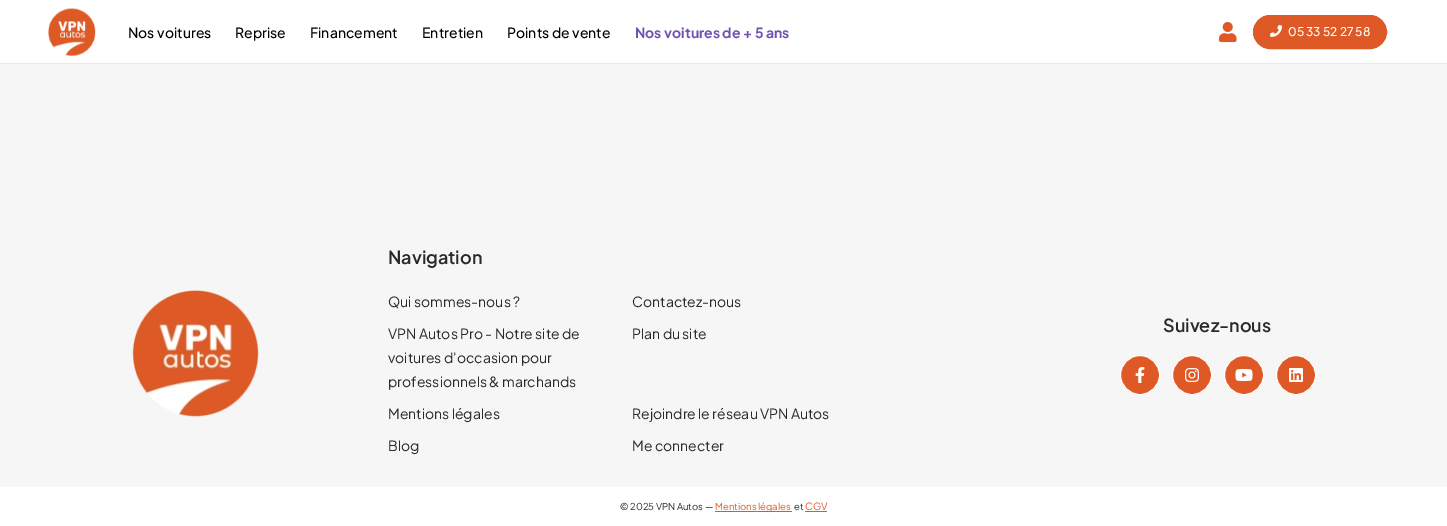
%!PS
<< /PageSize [1447 526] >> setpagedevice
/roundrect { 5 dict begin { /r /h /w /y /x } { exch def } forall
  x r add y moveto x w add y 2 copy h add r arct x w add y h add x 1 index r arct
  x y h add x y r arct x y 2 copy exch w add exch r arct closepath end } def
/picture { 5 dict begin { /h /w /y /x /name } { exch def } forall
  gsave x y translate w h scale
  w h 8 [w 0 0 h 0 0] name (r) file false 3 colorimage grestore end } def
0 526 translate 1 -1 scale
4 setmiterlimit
0.965 setgray
0 0 1447 526 rectfill
1 setgray
0 0 1447 63 rectfill
0.918 setgray
0 63 1447 1 rectfill
(img1.rgb) 48 8 48 48 picture
/PlusJakartaSans-Medium [14 0 0 -14 0 0] selectfont
0 setgray
128 38 moveto (Nos voitures) show
235 38 moveto (Reprise) show
310 38 moveto (Financement) show
422 38 moveto (Entretien) show
507 38 moveto (Points de vente) show
/PlusJakartaSans-Bold [14 0 0 -14 0 0] selectfont
0.451 0.314 0.694 setrgbcolor
635 38 moveto (Nos voitures de + 5 ans) show
(img2.rgb) 1218 21 19 22 picture
0.875 0.349 0.149 setrgbcolor
1253.5 15.5 133 33 16.5 roundrect gsave fill grestore
stroke
(img3.rgb) 1270 25 12 12 picture
/PlusJakartaSans-Medium [12 0 0 -12 0 0] selectfont
1 setgray
1288 36 moveto (05 33 52 27 58) show
(img4.rgb) 132 290 127 127 picture
/PlusJakartaSans-SemiBold [18 0 0 -18 0 0] selectfont
0.161 setgray
388 264 moveto (Navigation) show
/PlusJakartaSans-Regular [14 0 0 -14 0 0] selectfont
388 307 moveto (Qui sommes-nous ?) show
632 307 moveto (Contactez-nous) show
388 339 moveto (VPN Autos Pro - Notre site de) show
388 363 moveto (voitures d'occasion pour) show
388 387 moveto (professionnels & marchands) show
632 339 moveto (Plan du site) show
388 419 moveto (Mentions légales) show
632 419 moveto (Rejoindre le réseau VPN Autos) show
388 451 moveto (Blog) show
632 451 moveto (Me connecter) show
/PlusJakartaSans-SemiBold [18 0 0 -18 0 0] selectfont
1163 332 moveto (Suivez-nous) show
0.875 0.349 0.149 setrgbcolor
newpath 1140 375 19.5 0 360 arc closepath gsave fill grestore
1 setgray
stroke
(img5.rgb) 1135 367 10 16 picture
0.875 0.349 0.149 setrgbcolor
newpath 1192 375 19.5 0 360 arc closepath gsave fill grestore
1 setgray
stroke
(img6.rgb) 1185 368 14 14 picture
0.875 0.349 0.149 setrgbcolor
newpath 1244 375 19.5 0 360 arc closepath gsave fill grestore
1 setgray
stroke
(img7.rgb) 1235 369 18 12 picture
0.875 0.349 0.149 setrgbcolor
newpath 1296 375 19.5 0 360 arc closepath gsave fill grestore
1 setgray
stroke
(img8.rgb) 1289 368 14 14 picture
0 487 1447 39 rectfill
/PlusJakartaSans-Regular [9.5 0 0 -9.5 0 0] selectfont
0.161 setgray
620 510 moveto (© 2025 VPN Autos —) show
0.875 0.349 0.149 setrgbcolor
715 511 77 1 rectfill
715 510 moveto (Mentions légales) show
0.161 setgray
794 510 moveto (et) show
/PlusJakartaSans-Regular [10 0 0 -10 0 0] selectfont
0.875 0.349 0.149 setrgbcolor
805 510 moveto (CGV) show
805 511 22 1 rectfill
showpage
